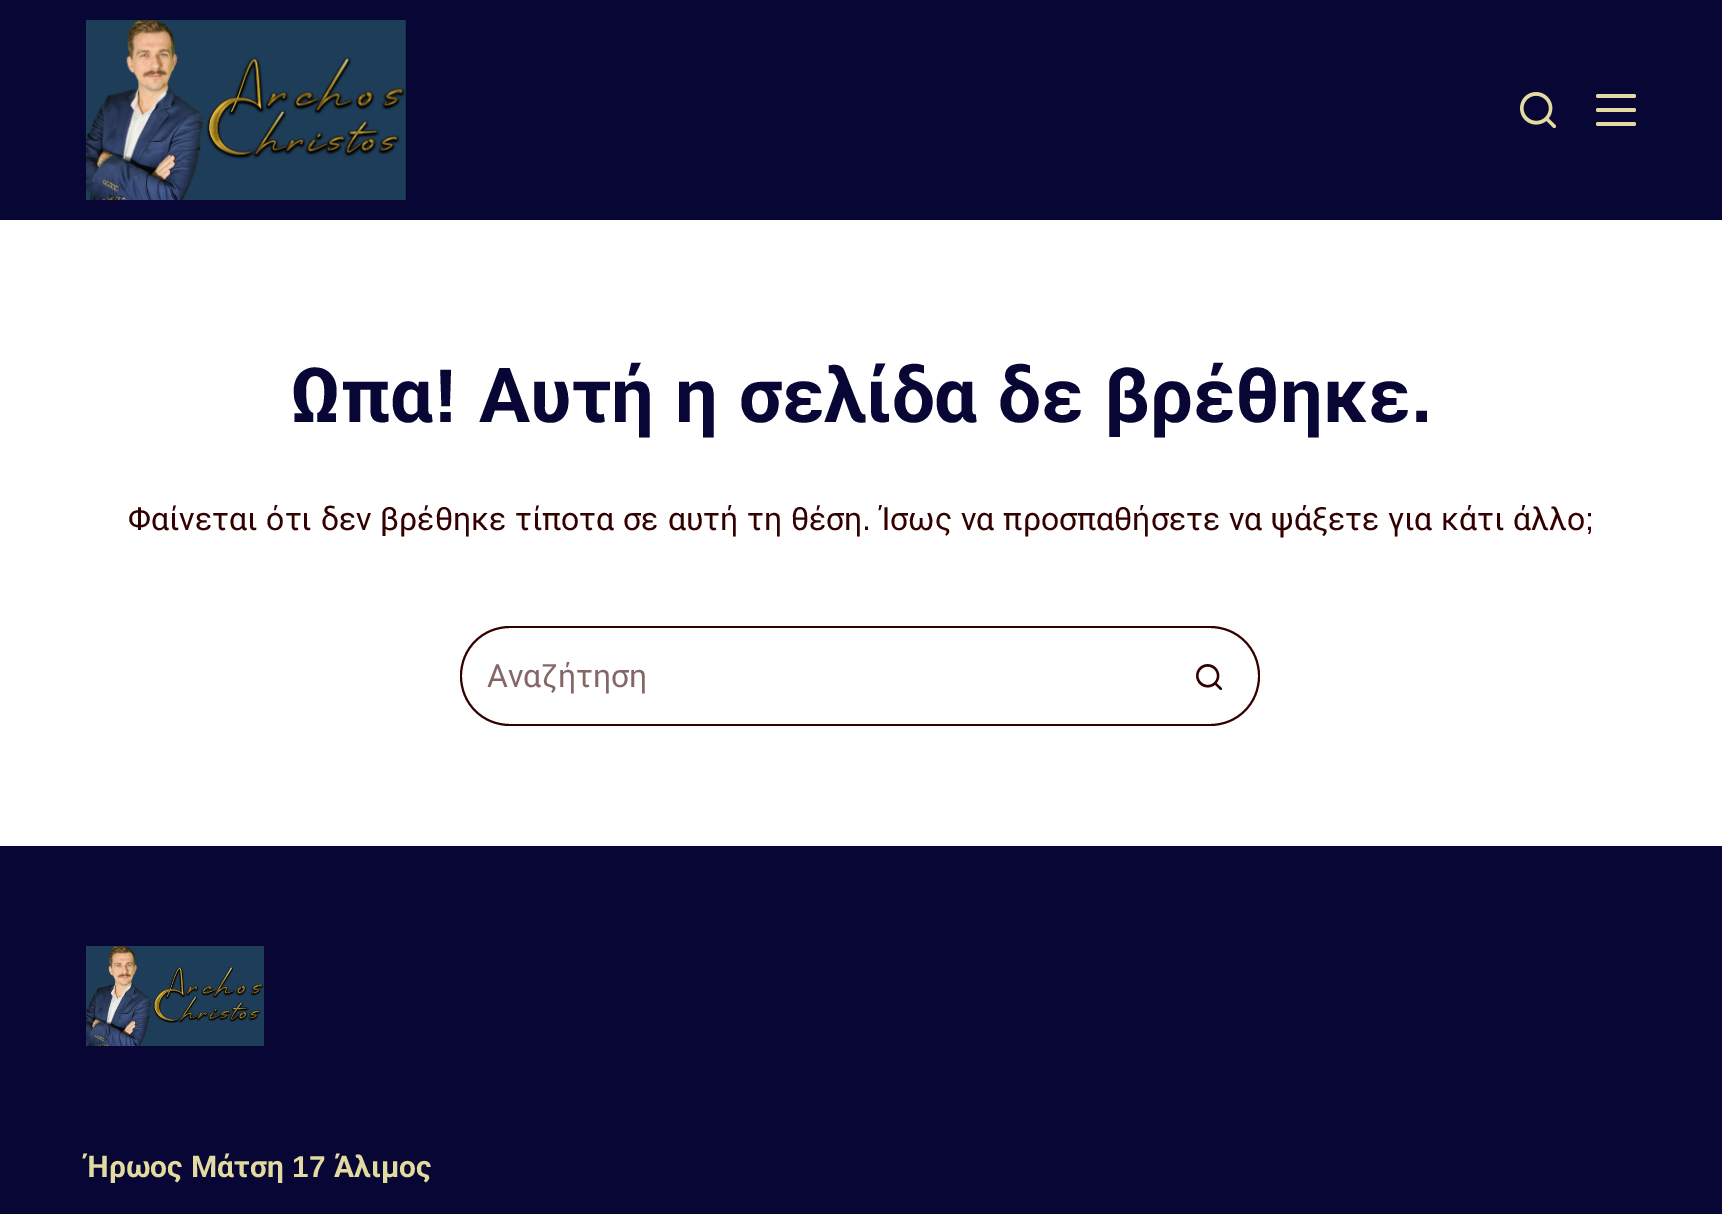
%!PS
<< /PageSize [1722 1214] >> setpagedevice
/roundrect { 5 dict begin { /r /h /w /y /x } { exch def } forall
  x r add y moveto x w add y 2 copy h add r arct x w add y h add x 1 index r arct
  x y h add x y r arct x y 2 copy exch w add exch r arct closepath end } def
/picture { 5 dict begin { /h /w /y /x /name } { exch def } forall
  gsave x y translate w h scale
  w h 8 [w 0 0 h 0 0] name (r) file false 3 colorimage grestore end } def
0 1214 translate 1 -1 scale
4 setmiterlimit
1 setgray
0 0 1722 1214 rectfill
0.027 0.024 0.204 setrgbcolor
0 0 1722 220 rectfill
(img1.rgb) 86 20 320 180 picture
(img2.rgb) 1520 92 36 36 picture
0.886 0.855 0.631 setrgbcolor
1596 94 40 4 2 roundrect fill
1596 108 40 4 2 roundrect fill
1596 122 40 4 2 roundrect fill
/Roboto-Bold [76 0 0 -76 0 0] selectfont
0.027 0.024 0.204 setrgbcolor
290 422 moveto (Ωπα) show
/LiberationSans-Bold [76 0 0 -76 0 0] selectfont
433 422 moveto (!) show
/Roboto-Bold [76 0 0 -76 0 0] selectfont
479 422 moveto 2 0 32 (Αυτή η σελίδα δε βρέθηκε) widthshow
/LiberationSans-Bold [76 0 0 -76 0 0] selectfont
1411 422 moveto (.) show
/Roboto-Regular [32 0 0 -32 0 0] selectfont
0.2 0 0 setrgbcolor
128 530 moveto 1 0 32 (Φαίνεται ότι δεν βρέθηκε τίποτα σε αυτή τη θέση) widthshow
/LiberationSans-Regular [32 0 0 -32 0 0] selectfont
862 530 moveto (.) show
/Roboto-Regular [32 0 0 -32 0 0] selectfont
880 530 moveto 1 0 32 (Ίσως να προσπαθήσετε να ψάξετε για κάτι άλλο) widthshow
/LiberationSans-Regular [32 0 0 -32 0 0] selectfont
1585 530 moveto (;) show
newpath 510 626 moveto 1160 626 lineto 1160 726 lineto 510 726 lineto 482 726 460 704 460 676 curveto 460 648 482 626 510 626 curveto closepath 510 628 moveto 1160 628 lineto 1160 724 lineto 510 724 lineto 483 724 462 703 462 676 curveto 462 649 483 628 510 628 curveto closepath eofill
/Roboto-Regular [32 0 0 -32 0 0] selectfont
0.522 0.4 0.4 setrgbcolor
487 687 moveto (Αναζήτηση) show
0.2 0 0 setrgbcolor
newpath 1160 626 moveto 1210 626 lineto 1238 626 1260 648 1260 676 curveto 1260 704 1238 726 1210 726 curveto 1160 726 lineto closepath 1160 628 moveto 1210 628 lineto 1237 628 1258 649 1258 676 curveto 1258 703 1237 724 1210 724 curveto 1160 724 lineto closepath eofill
(img3.rgb) 1196 664 26 26 picture
0.027 0.024 0.204 setrgbcolor
0 846 1722 368 rectfill
(img4.rgb) 86 946 178 100 picture
/Roboto-Bold [30 0 0 -30 0 0] selectfont
0.886 0.855 0.631 setrgbcolor
86 1177 moveto 1 0 32 (Ήρωος Μάτση) widthshow
/LiberationSans-Bold [30 0 0 -30 0 0] selectfont
292 1177 moveto (17) show
/Roboto-Bold [30 0 0 -30 0 0] selectfont
334 1177 moveto (Άλιμος) show
showpage
